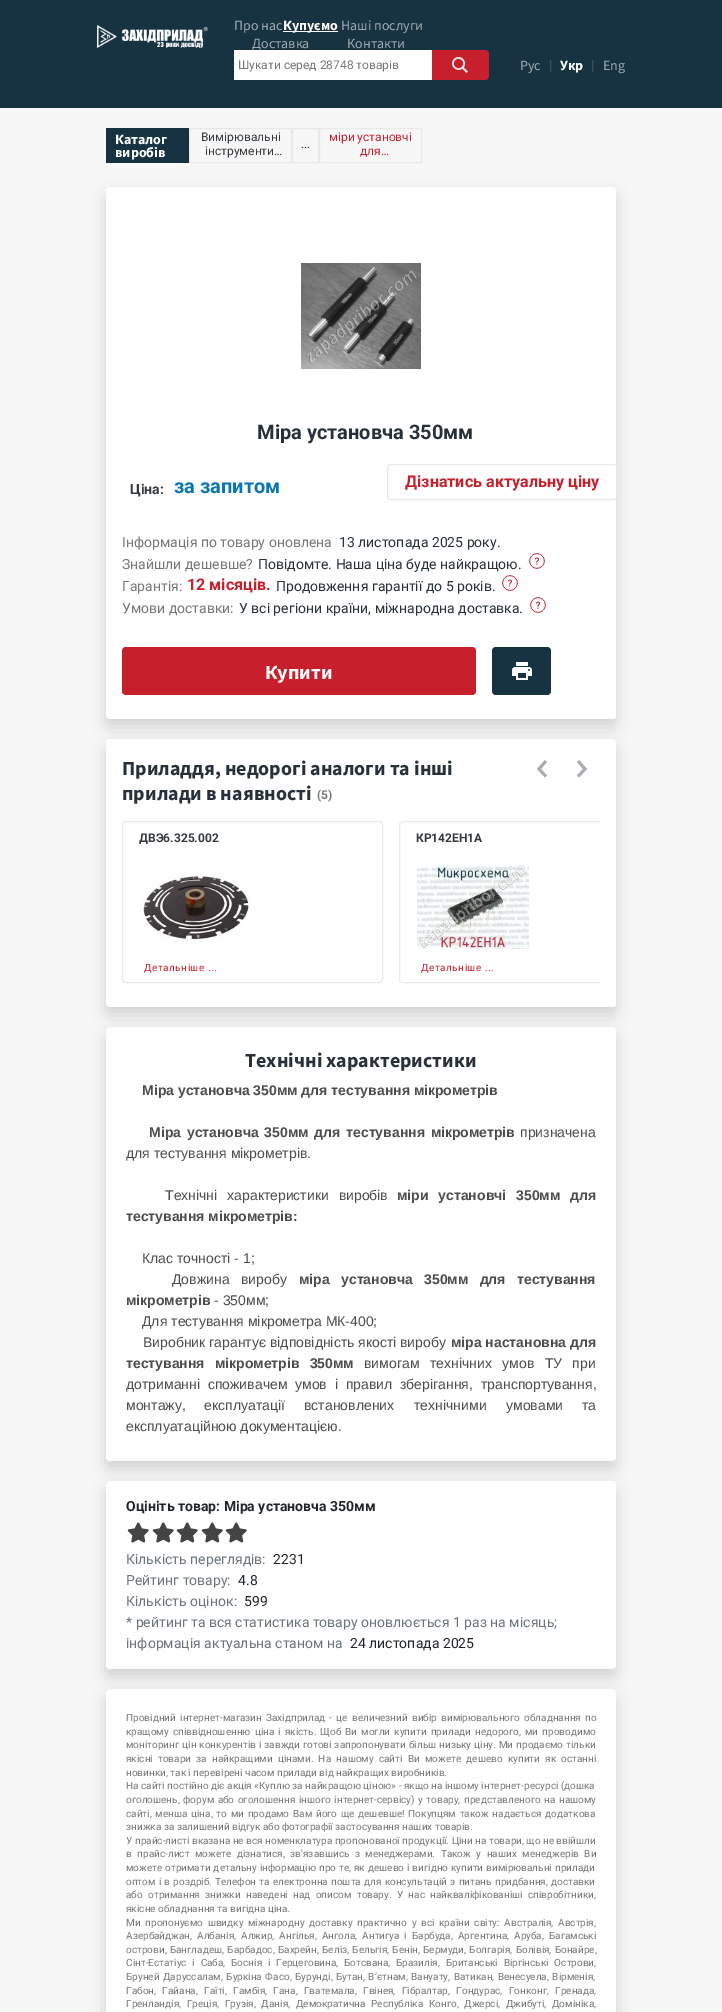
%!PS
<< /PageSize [722 2012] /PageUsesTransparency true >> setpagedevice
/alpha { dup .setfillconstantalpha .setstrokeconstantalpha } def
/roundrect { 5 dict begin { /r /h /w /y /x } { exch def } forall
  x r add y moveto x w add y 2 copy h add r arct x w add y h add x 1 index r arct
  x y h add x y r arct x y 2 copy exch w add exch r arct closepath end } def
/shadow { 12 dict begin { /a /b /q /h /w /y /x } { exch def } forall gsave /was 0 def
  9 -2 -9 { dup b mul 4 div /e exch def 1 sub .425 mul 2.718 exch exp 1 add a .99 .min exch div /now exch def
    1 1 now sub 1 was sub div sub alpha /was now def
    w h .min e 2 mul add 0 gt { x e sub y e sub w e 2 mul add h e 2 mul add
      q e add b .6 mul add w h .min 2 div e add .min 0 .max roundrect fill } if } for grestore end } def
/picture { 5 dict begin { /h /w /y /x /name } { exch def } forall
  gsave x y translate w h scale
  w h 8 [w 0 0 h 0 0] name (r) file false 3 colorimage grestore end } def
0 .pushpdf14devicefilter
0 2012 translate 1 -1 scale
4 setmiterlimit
0.969 setgray
0 0 722 2012 rectfill
0.09 0.196 0.251 setrgbcolor
0 0 722 108 rectfill
(img1.rgb) 96 24 112 25 picture
/SourceSansPro-Regular [14 0 0 -14 0 0] selectfont
0.635 0.678 0.702 setrgbcolor
234 30 moveto (Про нас) show
1 setgray
283 31 55 1 rectfill
/SourceSansPro-Bold [14 0 0 -14 0 0] selectfont
283 30 moveto (Купуємо) show
/SourceSansPro-Regular [14 0 0 -14 0 0] selectfont
0.635 0.678 0.702 setrgbcolor
341 30 moveto (Наші послуги) show
252 48 moveto (Доставка) show
347 48 moveto (Контакти) show
1 setgray
234 50 198 30 rectfill
/Roboto-Regular [12 0 0 -12 0 0] selectfont
0.467 setgray
238 69 moveto (Шукати серед 28748 товарів) show
0.78 0.125 0.173 setrgbcolor
newpath 432 50 moveto 485 50 lineto 487 50 489 52 489 54 curveto 489 76 lineto 489 78 487 80 485 80 curveto 432 80 lineto closepath fill
(img2.rgb) 452 57 16 16 picture
/SourceSansPro-Regular [14 0 0 -14 0 0] selectfont
0.635 0.678 0.702 setrgbcolor
520 70 moveto (Рус) show
/Roboto-Regular [14 0 0 -14 0 0] selectfont
0.271 0.357 0.4 setrgbcolor
549 70 moveto (|) show
/SourceSansPro-Bold [14 0 0 -14 0 0] selectfont
1 setgray
560 70 moveto (Укр) show
/Roboto-Regular [14 0 0 -14 0 0] selectfont
0.271 0.357 0.4 setrgbcolor
591 70 moveto (|) show
/SourceSansPro-Regular [14 0 0 -14 0 0] selectfont
0.635 0.678 0.702 setrgbcolor
603 70 moveto (Eng) show
0.09 0.196 0.251 setrgbcolor
106 128 83 35 rectfill
/SourceSansPro-Bold [14 0 0 -14 0 0] selectfont
1 setgray
115 144 moveto (Каталог) show
115 157 moveto (виробів) show
0.914 setgray
189.5 128.5 102 34 rectstroke
/Roboto-Regular [12 0 0 -12 0 0] selectfont
0.204 0.227 0.251 setrgbcolor
201 141 moveto (Вимірювальні) show
205 155 moveto (інструменти…) show
0.914 setgray
292.5 128.5 26 34 rectstroke
0.204 0.227 0.251 setrgbcolor
301 148 moveto (...) show
0.914 setgray
319.5 128.5 102 34 rectstroke
0.78 0.125 0.173 setrgbcolor
329 141 moveto (міри установчі) show
360 155 moveto (для…) show
0 setgray
106 195 510 532 4 8 0.15 shadow
1 setgray
106 187 510 532 4 roundrect fill
(img3.rgb) 301 263 120 106 picture
/Roboto-Bold [20 0 0 -20 0 0] selectfont
0.157 0.192 0.231 setrgbcolor
257 439 moveto (Міра установча 350мм) show
/Roboto-Bold [14 0 0 -14 0 0] selectfont
0.204 0.227 0.251 setrgbcolor
130 494 moveto (Ціна:) show
/Roboto-Bold [20 0 0 -20 0 0] selectfont
0.035 0.467 0.698 setrgbcolor
174 493 moveto (за запитом) show
1 setgray
387.5 464.5 229 35 2.5 roundrect gsave fill grestore
0.914 setgray
stroke
/Roboto-Bold [16.1 0 0 -16.1 0 0] selectfont
0.78 0.125 0.173 setrgbcolor
405 487 moveto (Дізнатись актуальну ціну) show
/Roboto-Regular [14 0 0 -14 0 0] selectfont
0.467 setgray
122 547 moveto (Інформація по товару оновлена) show
0.157 0.192 0.231 setrgbcolor
339 547 moveto (13 листопада 2025 року.) show
0.467 setgray
122 569 moveto (Знайшли дешевше?) show
0.157 0.192 0.231 setrgbcolor
258 569 moveto (Повідомте. Наша ціна буде найкращою.) show
(img4.rgb) 529 553 16 16 picture
0.467 setgray
122 591 moveto (Гарантія:) show
/Roboto-Bold [16 0 0 -16 0 0] selectfont
0.78 0.125 0.173 setrgbcolor
187 590 moveto (12 місяців.) show
/Roboto-Regular [14 0 0 -14 0 0] selectfont
0.157 0.192 0.231 setrgbcolor
276 591 moveto (Продовження гарантії до 5 років.) show
(img4.rgb) 502 575 16 16 picture
0.467 setgray
122 613 moveto (Умови доставки:) show
0.157 0.192 0.231 setrgbcolor
239 613 moveto (У всі регіони країни, міжнародна доставка.) show
(img4.rgb) 530 597 16 16 picture
0.78 0.125 0.173 setrgbcolor
122 647 354 48 4 roundrect fill
/SourceSansPro-Bold [20 0 0 -20 0 0] selectfont
1 setgray
265 679 moveto (Купити) show
0.09 0.196 0.251 setrgbcolor
492 647 59 48 4 roundrect fill
(img5.rgb) 512 662 20 18 picture
0 setgray
106 1035 510 434 4 8 0.15 shadow
1 setgray
106 1027 510 434 4 roundrect fill
0 setgray
106 747 510 268 4 8 0.15 shadow
1 setgray
106 739 510 268 4 roundrect fill
0.157 0.192 0.231 setrgbcolor
122 775 moveto (Приладдя, недорогі аналоги та інші) show
122 800 moveto (прилади в наявності) show
/Roboto-Bold [12 0 0 -12 0 0] selectfont
0.467 setgray
317 799 moveto (\(5\)) show
0.663 0.678 0.694 setrgbcolor
newpath 547 762 moveto 541 769 lineto 547 775.5 lineto 545 777.5 lineto 537 769 lineto 545 760 lineto closepath 577 762 moveto 583 769 lineto 577 775.5 lineto 579 777.5 lineto 587 769 lineto 579 760 lineto closepath fill
0.914 setgray
122.5 821.5 260 161 3.5 roundrect stroke
0.204 0.227 0.251 setrgbcolor
139 842 moveto (ДВЭ6.325.002) show
(img6.rgb) 140 876 112 67 picture
/Roboto-Regular [10 0 0 -10 0 0] selectfont
0.78 0.125 0.173 setrgbcolor
144 971 moveto 0.5 0 (Детальніше ...) ashow
gsave
122 821 478 170 rectclip
0.914 setgray
399.5 821.5 260 161 3.5 roundrect stroke
grestore
/Roboto-Bold [12 0 0 -12 0 0] selectfont
0.204 0.227 0.251 setrgbcolor
416 842 moveto (КР142ЕН1А) show
(img7.rgb) 417 865 112 84 picture
/Roboto-Regular [10 0 0 -10 0 0] selectfont
0.78 0.125 0.173 setrgbcolor
421 971 moveto 0.5 0 (Детальніше ...) ashow
/SourceSansPro-Bold [20 0 0 -20 0 0] selectfont
0.157 0.192 0.231 setrgbcolor
245 1067 moveto (Технічні характеристики) show
/LiberationSans-Bold [14 0 0 -14 0 0] selectfont
0.306 0.298 0.298 setrgbcolor
142 1095 moveto (Міра установча 350мм для тестування мікрометрів) show
149 1137 moveto 2 0 32 (Міра установча 350мм для тестування мікрометрів) widthshow
/LiberationSans-Regular [14 0 0 -14 0 0] selectfont
520 1137 moveto (призначена) show
126 1158 moveto (для тестування мікрометрів.) show
165 1200 moveto 6 0 32 (Технічні характеристики виробів) widthshow
/LiberationSans-Bold [14 0 0 -14 0 0] selectfont
397 1200 moveto 6 0 32 (міри установчі 350мм для) widthshow
126 1221 moveto (тестування мікрометрів:) show
/LiberationSans-Regular [14 0 0 -14 0 0] selectfont
142 1263 moveto (Клас точності - 1;) show
172 1284 moveto 7.5 0 32 (Довжина виробу) widthshow
/LiberationSans-Bold [14 0 0 -14 0 0] selectfont
299 1284 moveto 7.5 0 32 (міра установча 350мм для тестування) widthshow
126 1305 moveto (мікрометрів) show
/LiberationSans-Regular [14 0 0 -14 0 0] selectfont
214 1305 moveto (- 350мм;) show
142 1326 moveto (Для тестування мікрометра МК-400;) show
143 1347 moveto (Виробник гарантує відповідність якості виробу) show
/LiberationSans-Bold [14 0 0 -14 0 0] selectfont
451 1347 moveto (міра настановна для) show
126 1368 moveto 6.5 0 32 (тестування мікрометрів 350мм) widthshow
/LiberationSans-Regular [14 0 0 -14 0 0] selectfont
364 1368 moveto (вимогам) show
430 1368 moveto 6.5 0 32 (технічних умов ТУ при) widthshow
126 1389 moveto 3.9 0 32 (дотриманні споживачем умов і правил) widthshow
400 1389 moveto (зберігання,) show
481 1389 moveto (транспортування,) show
126 1410 moveto 15 0 32 (монтажу, експлуатації встановлених) widthshow
414 1410 moveto (технічними) show
506 1410 moveto (умовами) show
582 1410 moveto (та) show
126 1431 moveto (експлуатаційною документацією.) show
0 setgray
106 1697 510 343 4 8 0.15 shadow
1 setgray
106 1689 510 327 4 roundrect fill
0 setgray
106 1489 510 188 4 8 0.15 shadow
1 setgray
106 1481 510 188 4 roundrect fill
/Roboto-Bold [14 0 0 -14 0 0] selectfont
0.129 0.145 0.161 setrgbcolor
126 1511 moveto (Оцініть товар: Міра установча 350мм) show
(img8.rgb) 127 1522 22 21 picture
(img8.rgb) 152 1522 22 21 picture
(img8.rgb) 176 1522 22 21 picture
(img8.rgb) 201 1522 22 21 picture
(img8.rgb) 225 1522 22 21 picture
/Roboto-Regular [14 0 0 -14 0 0] selectfont
0.424 0.459 0.49 setrgbcolor
126 1564 moveto (Кількість переглядів:) show
0.129 0.145 0.161 setrgbcolor
273 1564 moveto (2231) show
0.424 0.459 0.49 setrgbcolor
126 1585 moveto (Рейтинг товару:) show
0.129 0.145 0.161 setrgbcolor
238 1585 moveto (4.8) show
0.424 0.459 0.49 setrgbcolor
126 1606 moveto (Кількість оцінок:) show
0.129 0.145 0.161 setrgbcolor
244 1606 moveto (599) show
0.424 0.459 0.49 setrgbcolor
126 1627 moveto (* рейтинг та вся статистика товару оновлюється 1 раз на місяць;) show
126 1648 moveto (інформація актуальна станом на) show
0.129 0.145 0.161 setrgbcolor
350 1648 moveto (24 листопада 2025) show
/Roboto-Regular [10 0 0 -10 0 0] selectfont
0.467 setgray
126 1721 moveto 1.75 0 32 (Провідний інтернет-магазин Західприлад - це величезний вибір вимірювального обладнання по) widthshow
126 1735 moveto 1.6 0 32 (кращому співвідношенню ціна і якість. Щоб Ви могли купити прилади недорого, ми проводимо) widthshow
126 1748 moveto 0.5 0 32 (моніторинг цін конкурентів і завжди готові запропонувати більш низьку ціну. Ми продаємо тільки) widthshow
126 1762 moveto 2.75 0 32 (якісні товари за найкращими цінами. На нашому сайті Ви можете дешево купити як останні) widthshow
126 1776 moveto (новинки, так і перевірені часом прилади від найкращих виробників.) show
126 1789 moveto (На сайті постійно діє акція «Куплю за найкращою ціною» - якщо на іншому інтернет-ресурсі \(дошка) show
126 1803 moveto 1.1 0 32 (оголошень, форум або оголошення іншого інтернет-сервісу\) у товару, представленого на нашому) widthshow
126 1817 moveto 1.25 0 32 (сайті, менша ціна, то ми продамо Вам його ще дешевше! Покупцям також надається додаткова) widthshow
126 1830 moveto (знижка за залишений відгук або фотографії застосування наших товарів.) show
126 1844 moveto (У прайс-листі вказана не вся номенклатура пропонованої продукції. Ціни на товари, що не ввійшли) show
126 1857 moveto 3.1 0 32 (в прайс-лист можете дізнатися, зв'язавшись з менеджерами. Також у наших менеджерів Ви) widthshow
126 1871 moveto 0.5 0 32 (можете отримати детальну інформацію про те, як дешево і вигідно купити вимірювальні прилади) widthshow
126 1885 moveto 0.75 0 32 (оптом і в роздріб. Телефон та електронна пошта для консультацій з питань придбання, доставки) widthshow
126 1898 moveto 2.9 0 32 (або отримання знижки наведені над описом товару. У нас найкваліфікованіші співробітники,) widthshow
126 1912 moveto (якісне обладнання та вигідна ціна.) show
126 1926 moveto 2.25 0 32 (Ми пропонуємо швидку міжнародну доставку практично у всі країни світу: Австралія, Австрія,) widthshow
126 1939 moveto 2.5 0 32 (Азербайджан, Албанія, Алжир, Ангілья, Ангола, Антигуа і Барбуда, Аргентина, Аруба, Багамські) widthshow
126 1953 moveto 0.75 0 32 (острови, Бангладеш, Барбадос, Бахрейн, Беліз, Бельгія, Бенін, Бермуди, Болгарія, Болівія, Бонайре,) widthshow
126 1966 moveto 3.25 0 32 (Сінт-Естатіус і Саба, Боснія і Герцеговина, Ботсвана, Бразилія, Британські Віргінські Острови,) widthshow
126 1980 moveto 1 0 32 (Бруней Даруссалам, Буркіна Фасо, Бурунді, Бутан, В’єтнам, Вануату, Ватикан, Венесуела, Вірменія,) widthshow
126 1994 moveto 3.9 0 32 (Габон, Гайана, Гаїті, Гамбія, Гана, Гватемала, Гвінея, Гібралтар, Гондурас, Гонконг, Гренада,) widthshow
126 2007 moveto 3.25 0 32 (Гренландія, Греція, Грузія, Данія, Демократична Республіка Конго, Джерсі, Джибуті, Домініка,) widthshow
.poppdf14devicefilter showpage
